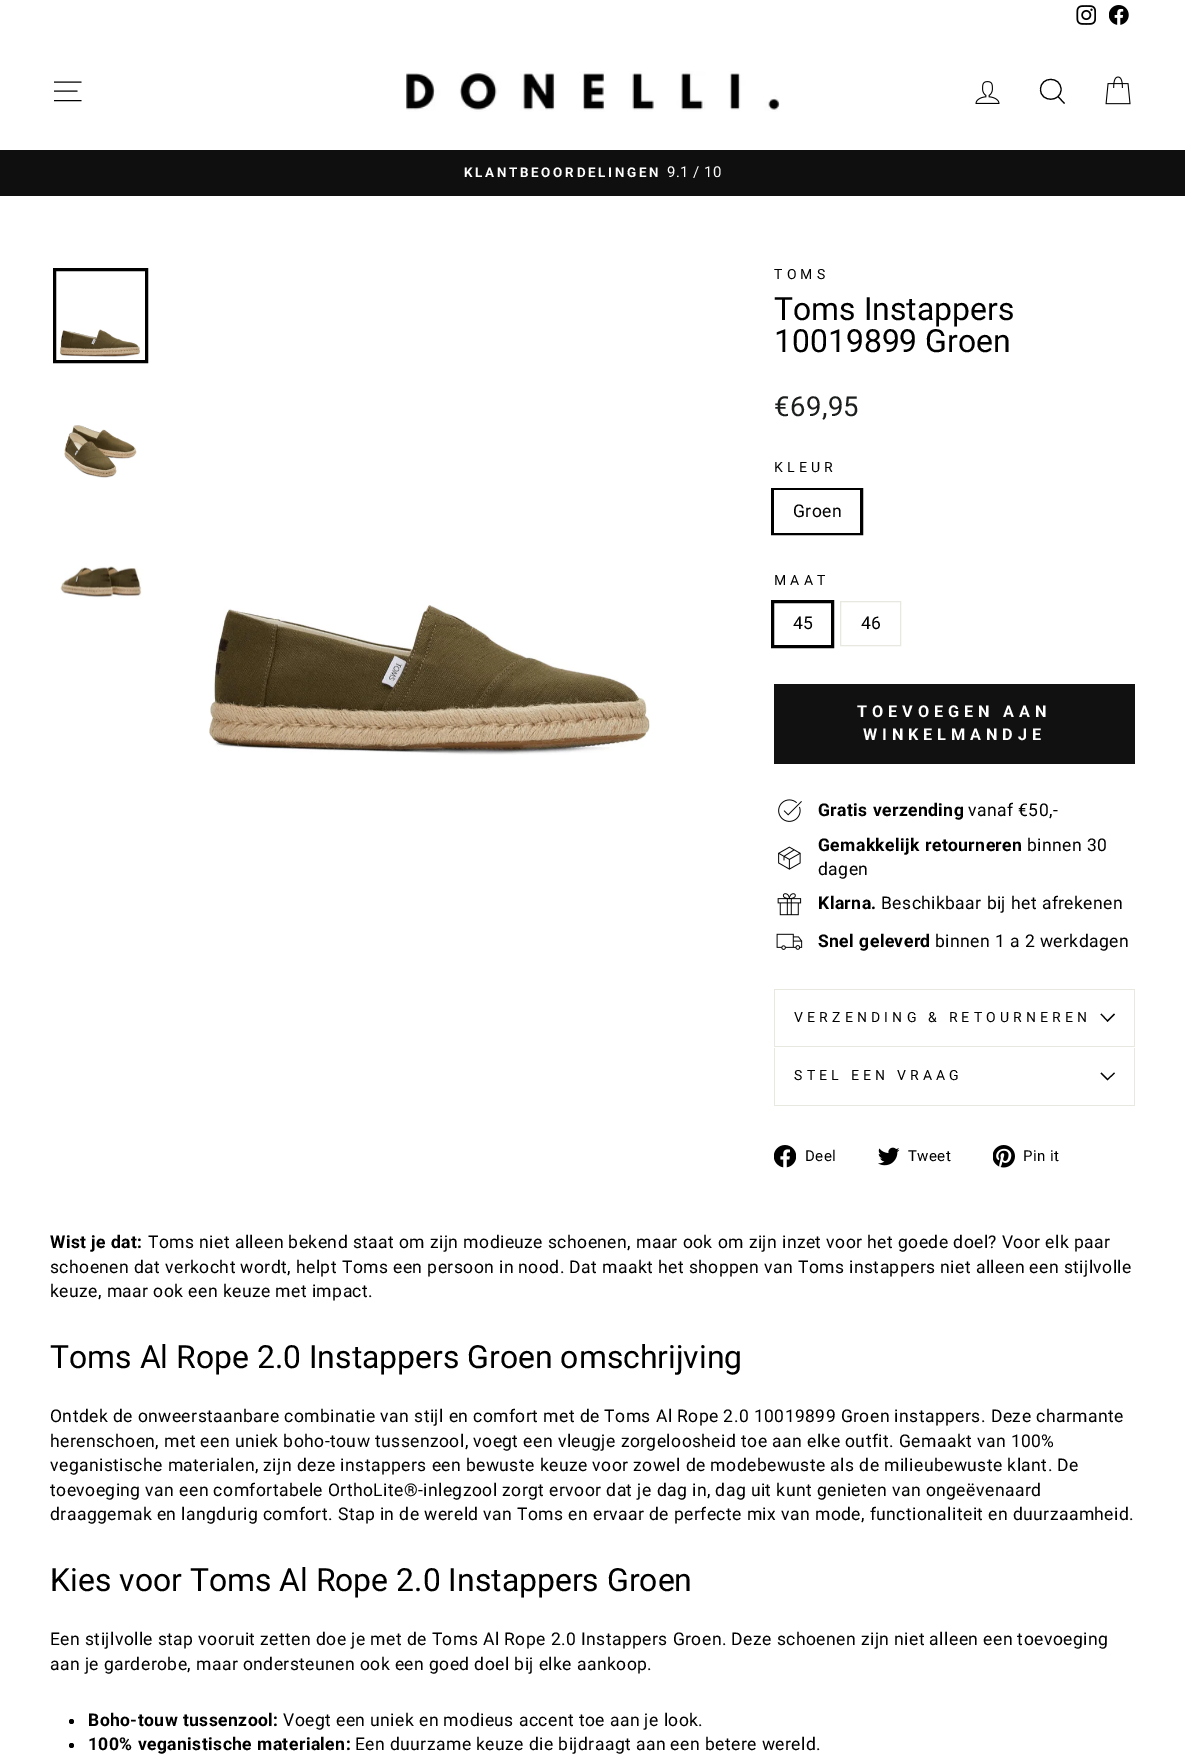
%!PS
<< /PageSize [1185 1764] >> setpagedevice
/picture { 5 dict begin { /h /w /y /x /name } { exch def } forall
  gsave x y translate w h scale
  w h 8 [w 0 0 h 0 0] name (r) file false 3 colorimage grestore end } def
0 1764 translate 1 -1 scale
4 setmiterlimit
1 setgray
0 0 1185 1764 rectfill
(img1.rgb) 1076 5 20 20 picture
(img2.rgb) 1109 5 20 20 picture
0 setgray
1.1 setlinewidth
newpath 54 82 moveto 81.5 82 lineto 54 91 moveto 77.5 91 lineto 54 100.5 moveto 81.5 100.5 lineto stroke
(img3.rgb) 406 71 374 41 picture
(img4.rgb) 975 81 25 23 picture
newpath 1061 89.5 moveto 1061 102.5 1040.5 102.5 1040.5 89.5 curveto 1040.5 76 1061 76 1061 89.5 curveto closepath 1064.5 103.5 moveto 1058 96.5 lineto stroke
(img5.rgb) 1105 76 26 29 picture
0.059 setgray
0 150 1185 46 rectfill
/Roboto-Bold [13.4 0 0 -13.4 0 0] selectfont
1 setgray
464 177 moveto 2.7 0 (KLANTBEOORDELINGEN) ashow
/Roboto-Regular [15 0 0 -15 0 0] selectfont
667 177 moveto 0.44 0 (9.1 / 10) ashow
(img6.rgb) 60 329 80 28 picture
0 setgray
3 setlinewidth
54.5 269.5 92 92 rectstroke
(img7.rgb) 64 425 73 53 picture
(img8.rgb) 60 566 82 33 picture
(img9.rgb) 209 604 441 151 picture
/Roboto-Regular [14 0 0 -14 0 0] selectfont
774 279 moveto 4.2 0 (TOMS) ashow
/Roboto-Regular [31.9 0 0 -31.9 0 0] selectfont
774 320 moveto (Toms Instappers) show
774 352 moveto (10019899 Groen) show
/Roboto-Regular [27.5 0 0 -27.5 0 0] selectfont
0.11 0.114 0.114 setrgbcolor
774 416 moveto 0.44 0 (€69,95) ashow
/Roboto-Regular [14 0 0 -14 0 0] selectfont
0 setgray
774 472 moveto 4.2 0 (KLEUR) ashow
772.5 489.5 89 44 rectstroke
1 setgray
774 490 86 43 rectfill
/Roboto-Regular [17.5 0 0 -17.5 0 0] selectfont
0 setgray
793 517 moveto 0.44 0 (Groen) ashow
/Roboto-Regular [14 0 0 -14 0 0] selectfont
774 585 moveto 4.2 0 (MAAT) ashow
772.5 601.5 60 45 rectstroke
/Roboto-Regular [17.5 0 0 -17.5 0 0] selectfont
793 629 moveto 0.44 0 (45) ashow
0.91 0.91 0.882 setrgbcolor
1 setlinewidth
840.5 601.5 60 44 rectstroke
0 setgray
861 629 moveto 0.44 0 (46) ashow
0.067 setgray
774 684 361 80 rectfill
/Roboto-Bold [16.25 0 0 -16.25 0 0] selectfont
1 setgray
857 717 moveto 4.9 0 (TOEVOEGEN AAN) ashow
863 740 moveto 4.9 0 (WINKELMANDJE) ashow
(img10.rgb) 778 799 24 23 picture
/Roboto-Bold [17.5 0 0 -17.5 0 0] selectfont
0 setgray
818 816 moveto 0.44 0 (Gratis verzending) ashow
/Roboto-Regular [17.5 0 0 -17.5 0 0] selectfont
968 816 moveto 0.44 0 (vanaf €50,-) ashow
(img11.rgb) 778 846 23 24 picture
/Roboto-Bold [17.5 0 0 -17.5 0 0] selectfont
818 851 moveto 0.44 0 (Gemakkelijk retourneren) ashow
/Roboto-Regular [17.5 0 0 -17.5 0 0] selectfont
1027 851 moveto 0.44 0 (binnen 30) ashow
818 875 moveto 0.44 0 (dagen) ashow
(img12.rgb) 777 893 25 23 picture
/Roboto-Bold [17.5 0 0 -17.5 0 0] selectfont
818 909 moveto 0.44 0 (Klarna.) ashow
/Roboto-Regular [17.5 0 0 -17.5 0 0] selectfont
881 909 moveto 0.44 0 (Beschikbaar bij het afrekenen) ashow
(img13.rgb) 776 933 27 17 picture
/Roboto-Bold [17.5 0 0 -17.5 0 0] selectfont
818 947 moveto 0.44 0 (Snel geleverd) ashow
/Roboto-Regular [17.5 0 0 -17.5 0 0] selectfont
935 947 moveto 0.44 0 (binnen 1 a 2 werkdagen) ashow
0.91 0.91 0.882 setrgbcolor
774 1046 361 1 rectfill
774 989 361 1 rectfill
1134 989 1 57 rectfill
774 989 1 57 rectfill
/Roboto-Regular [14 0 0 -14 0 0] selectfont
0 setgray
794 1022 moveto 4.2 0 (VERZENDING & RETOURNEREN) ashow
1.1 setlinewidth
newpath 1101 1014 moveto 1107.5 1021 lineto 1114.5 1014 lineto stroke
0.91 0.91 0.882 setrgbcolor
774 1105 361 1 rectfill
1134 1048 1 57 rectfill
774 1048 1 57 rectfill
0 setgray
794 1080 moveto 4.2 0 (STEL EEN VRAAG) ashow
newpath 1101 1073 moveto 1107.5 1079.5 lineto 1114.5 1073 lineto stroke
(img14.rgb) 774 1145 22 23 picture
/Roboto-Regular [15 0 0 -15 0 0] selectfont
805 1161 moveto 0.44 0 (Deel) ashow
(img15.rgb) 878 1147 22 19 picture
908 1161 moveto 0.44 0 (Tweet) ashow
(img16.rgb) 993 1145 22 23 picture
1023 1161 moveto 0.44 0 (Pin it) ashow
/Roboto-Bold [17.5 0 0 -17.5 0 0] selectfont
50 1248 moveto 0.44 0 (Wist je dat:) ashow
/Roboto-Regular [17.5 0 0 -17.5 0 0] selectfont
148 1248 moveto 0.44 0 (Toms niet alleen bekend staat om zijn modieuze schoenen, maar ook om zijn inzet voor het goede doel? Voor elk paar) ashow
50 1273 moveto 0.44 0 (schoenen dat verkocht wordt, helpt Toms een persoon in nood. Dat maakt het shoppen van Toms instappers niet alleen een stijlvolle) ashow
50 1297 moveto 0.44 0 (keuze, maar ook een keuze met impact.) ashow
/Roboto-Regular [31.9 0 0 -31.9 0 0] selectfont
50 1368 moveto (Toms Al Rope 2.0 Instappers Groen omschrijving) show
/Roboto-Regular [17.5 0 0 -17.5 0 0] selectfont
50 1422 moveto 0.44 0 (Ontdek de onweerstaanbare combinatie van stijl en comfort met de Toms Al Rope 2.0 10019899 Groen instappers. Deze charmante) ashow
50 1447 moveto 0.44 0 (herenschoen, met een uniek boho-touw tussenzool, voegt een vleugje zorgeloosheid toe aan elke outfit. Gemaakt van 100%) ashow
50 1471 moveto 0.44 0 (veganistische materialen, zijn deze instappers een bewuste keuze voor zowel de modebewuste als de milieubewuste klant. De) ashow
50 1496 moveto 0.44 0 (toevoeging van een comfortabele OrthoLite®-inlegzool zorgt ervoor dat je dag in, dag uit kunt genieten van ongeëvenaard) ashow
50 1520 moveto 0.44 0 (draaggemak en langdurig comfort. Stap in de wereld van Toms en ervaar de perfecte mix van mode, functionaliteit en duurzaamheid.) ashow
/Roboto-Regular [31.9 0 0 -31.9 0 0] selectfont
50 1591 moveto (Kies voor Toms Al Rope 2.0 Instappers Groen) show
/Roboto-Regular [17.5 0 0 -17.5 0 0] selectfont
50 1645 moveto 0.44 0 (Een stijlvolle stap vooruit zetten doe je met de Toms Al Rope 2.0 Instappers Groen. Deze schoenen zijn niet alleen een toevoeging) ashow
50 1670 moveto 0.44 0 (aan je garderobe, maar ondersteunen ook een goed doel bij elke aankoop.) ashow
newpath 71.5 1721.5 2.5 0 360 arc closepath fill
/Roboto-Bold [17.5 0 0 -17.5 0 0] selectfont
88 1726 moveto 0.44 0 (Boho-touw tussenzool:) ashow
/Roboto-Regular [17.5 0 0 -17.5 0 0] selectfont
283 1726 moveto 0.44 0 (Voegt een uniek en modieus accent toe aan je look.) ashow
newpath 71.5 1745.5 2.5 0 360 arc closepath fill
/Roboto-Bold [17.5 0 0 -17.5 0 0] selectfont
88 1750 moveto 0.44 0 (100% veganistische materialen:) ashow
/Roboto-Regular [17.5 0 0 -17.5 0 0] selectfont
355 1750 moveto 0.44 0 (Een duurzame keuze die bijdraagt aan een betere wereld.) ashow
showpage
